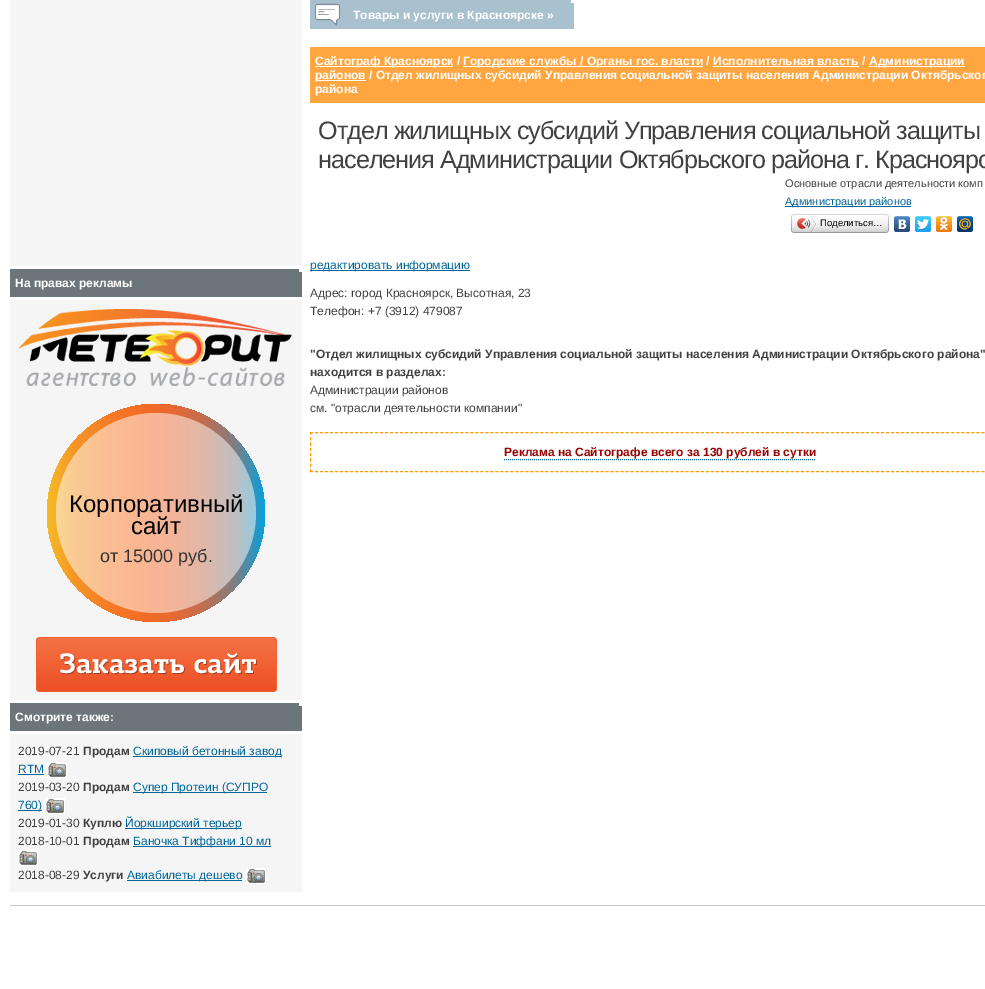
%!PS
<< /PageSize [985 989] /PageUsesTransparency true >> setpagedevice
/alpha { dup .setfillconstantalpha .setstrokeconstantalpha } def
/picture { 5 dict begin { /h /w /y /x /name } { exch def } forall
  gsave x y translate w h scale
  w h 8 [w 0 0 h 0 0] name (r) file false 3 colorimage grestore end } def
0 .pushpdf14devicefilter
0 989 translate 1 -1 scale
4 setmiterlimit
1 setgray
0 0 985 989 rectfill
0.961 setgray
10 0 292 266 rectfill
0.424 0.459 0.478 setrgbcolor
10 269 292 28 rectfill
1 setgray
299 269 3 3 rectfill
/LiberationSans-Bold [12 0 0 -12 0 0] selectfont
15 287 moveto (На правах рекламы) show
0.961 setgray
10 300 292 400 rectfill
(img1.rgb) 18 309 275 77 picture
gsave newpath 156 513 109 0 360 arc closepath clip newpath
<< /ShadingType 2 /ColorSpace /DeviceRGB /Coords [47 513 265 513] /Extend [true true] /Function << /FunctionType 3 /Domain [0 1] /Functions [<< /FunctionType 2 /Domain [0 1] /C0 [0.961 0.733 0.149] /C1 [0.961 0.573 0.149] /N 1 >> << /FunctionType 2 /Domain [0 1] /C0 [0.961 0.573 0.149] /C1 [0.961 0.482 0.149] /N 1 >> << /FunctionType 2 /Domain [0 1] /C0 [0.961 0.482 0.149] /C1 [0.961 0.427 0.149] /N 1 >> << /FunctionType 2 /Domain [0 1] /C0 [0.961 0.427 0.149] /C1 [0.91 0.412 0.196] /N 1 >> << /FunctionType 2 /Domain [0 1] /C0 [0.91 0.412 0.196] /C1 [0.765 0.431 0.306] /N 1 >> << /FunctionType 2 /Domain [0 1] /C0 [0.765 0.431 0.306] /C1 [0.502 0.494 0.506] /N 1 >> << /FunctionType 2 /Domain [0 1] /C0 [0.502 0.494 0.506] /C1 [0.02 0.627 0.867] /N 1 >>] /Bounds [0.14 0.29 0.43 0.57 0.71 0.86] /Encode [0 1 0 1 0 1 0 1 0 1 0 1 0 1] >> >> shfill grestore
0.5 alpha
1 setgray
newpath 156 513 100 0 360 arc closepath fill
/LiberationSans-Regular [24 0 0 -24 0 0] selectfont
1 alpha
0 setgray
69 512 moveto (Корпоративный) show
131 534 moveto (сайт) show
/LiberationSans-Regular [18 0 0 -18 0 0] selectfont
0.2 setgray
100 562 moveto (от 15000 руб.) show
(img2.rgb) 36 637 241 55 picture
0.424 0.459 0.478 setrgbcolor
10 703 292 28 rectfill
1 setgray
299 703 3 3 rectfill
/LiberationSans-Bold [12 0 0 -12 0 0] selectfont
15 721 moveto (Смотрите также:) show
0.961 setgray
10 734 292 158 rectfill
/LiberationSans-Regular [12 0 0 -12 0 0] selectfont
0.255 setgray
18 755 moveto (2019-07-21) show
/LiberationSans-Bold [12 0 0 -12 0 0] selectfont
83 755 moveto (Продам) show
0 0.4 0.6 setrgbcolor
133 756 148 1 rectfill
/LiberationSans-Regular [12 0 0 -12 0 0] selectfont
133 755 moveto (Скиповый бетонный завод) show
18 773 moveto (RTM) show
18 774 26 1 rectfill
(img3.rgb) 47 762 20 16 picture
0.255 setgray
18 791 moveto (2019-03-20) show
/LiberationSans-Bold [12 0 0 -12 0 0] selectfont
83 791 moveto (Продам) show
0 0.4 0.6 setrgbcolor
133 792 134 1 rectfill
/LiberationSans-Regular [12 0 0 -12 0 0] selectfont
133 791 moveto (Супер Протеин \(СУПРО) show
18 810 24 1 rectfill
18 809 moveto (760\)) show
(img3.rgb) 45 798 20 16 picture
0.255 setgray
18 827 moveto (2019-01-30) show
/LiberationSans-Bold [12 0 0 -12 0 0] selectfont
83 827 moveto (Куплю) show
0 0.4 0.6 setrgbcolor
125 828 117 1 rectfill
/LiberationSans-Regular [12 0 0 -12 0 0] selectfont
125 827 moveto (Йоркширский терьер) show
0.255 setgray
18 845 moveto (2018-10-01) show
/LiberationSans-Bold [12 0 0 -12 0 0] selectfont
83 845 moveto (Продам) show
0 0.4 0.6 setrgbcolor
133 846 138 1 rectfill
/LiberationSans-Regular [12 0 0 -12 0 0] selectfont
133 845 moveto (Баночка Тиффани 10 мл) show
(img3.rgb) 18 850 20 16 picture
0.255 setgray
18 879 moveto (2018-08-29) show
/LiberationSans-Bold [12 0 0 -12 0 0] selectfont
83 879 moveto (Услуги) show
0 0.4 0.6 setrgbcolor
127 880 115 1 rectfill
/LiberationSans-Regular [12 0 0 -12 0 0] selectfont
127 879 moveto (Авиабилеты дешево) show
(img3.rgb) 246 868 20 16 picture
0.663 0.753 0.808 setrgbcolor
310 0 264 29 rectfill
(img4.rgb) 315 3 25 23 picture
1 setgray
571 0 3 3 rectfill
/LiberationSans-Bold [12 0 0 -12 0 0] selectfont
353 19 moveto (Товары и услуги в Красноярске ») show
1 0.651 0.251 setrgbcolor
310 47 675 56 rectfill
1 setgray
315 66 138 1 rectfill
315 65 moveto (Сайтограф Красноярск /) show
463 66 240 1 rectfill
463 65 moveto (Городские службы / Органы гос. власти / Исполнительная власть /) show
869 66 96 1 rectfill
869 65 moveto (Администрации) show
713 66 146 1 rectfill
315 80 51 1 rectfill
315 79 moveto (районов / Отдел жилищных субсидий Управления социальной защиты населения Администрации Октябрьског) show
315 93 moveto (района) show
/LiberationSans-Regular [25.2 0 0 -25.2 0 0] selectfont
0.255 setgray
318 139 moveto -1 0 (Отдел жилищных субсидий Управления социальной защиты) ashow
318 168 moveto -1 0 (населения Администрации Октябрьского района г. Красноярс) ashow
/LiberationSans-Regular [11 0 0 -11 0 0] selectfont
785 187 moveto (Основные отрасли деятельности комп) show
0 0.4 0.6 setrgbcolor
785 206 126 1 rectfill
785 205 moveto (Администрации районов) show
(img5.rgb) 794 214 92 19 picture
(img6.rgb) 791 214 3 19 picture
(img7.rgb) 797 215 20 17 picture
/LiberationSans-Regular [9.5 0 0 -9.5 0 0] selectfont
0 setgray
820 226 moveto (Поделиться…) show
(img8.rgb) 886 214 3 19 picture
(img9.rgb) 894 216 16 16 picture
(img10.rgb) 915 216 16 16 picture
(img11.rgb) 936 216 16 16 picture
(img12.rgb) 957 216 16 16 picture
0 0.4 0.6 setrgbcolor
310 270 160 1 rectfill
/LiberationSans-Regular [12 0 0 -12 0 0] selectfont
310 269 moveto (редактировать информацию) show
0.255 setgray
310 297 moveto (Адрес: город Красноярск, Высотная, 23) show
310 315 moveto (Телефон: +7 \(3912\) 479087) show
/LiberationSans-Bold [12 0 0 -12 0 0] selectfont
310 358 moveto ("Отдел жилищных субсидий Управления социальной защиты населения Администрации Октябрьского района") show
310 376 moveto (находится в разделах:) show
/LiberationSans-Regular [12 0 0 -12 0 0] selectfont
310 394 moveto (Администрации районов) show
310 412 moveto (см. "отрасли деятельности компании") show
1 0.6 0 setrgbcolor
[3 2.01] 0 setdash
newpath 310 432.5 moveto 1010 432.5 lineto stroke
newpath 310 471.5 moveto 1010 471.5 lineto stroke
[3 2.29] 0 setdash
newpath 310.5 432 moveto 310.5 472 lineto stroke
/LiberationSans-Bold [12 0 0 -12 0 0] selectfont
0.6 0 0 setrgbcolor
504 456 moveto (Реклама на Сайтографе всего за 130 рублей в сутки) show
0 0.4 0.6 setrgbcolor
[1 1] 0 setdash
newpath 504 459.5 moveto 816 459.5 lineto stroke
0.8 setgray
10 905 975 1 rectfill
.poppdf14devicefilter showpage
